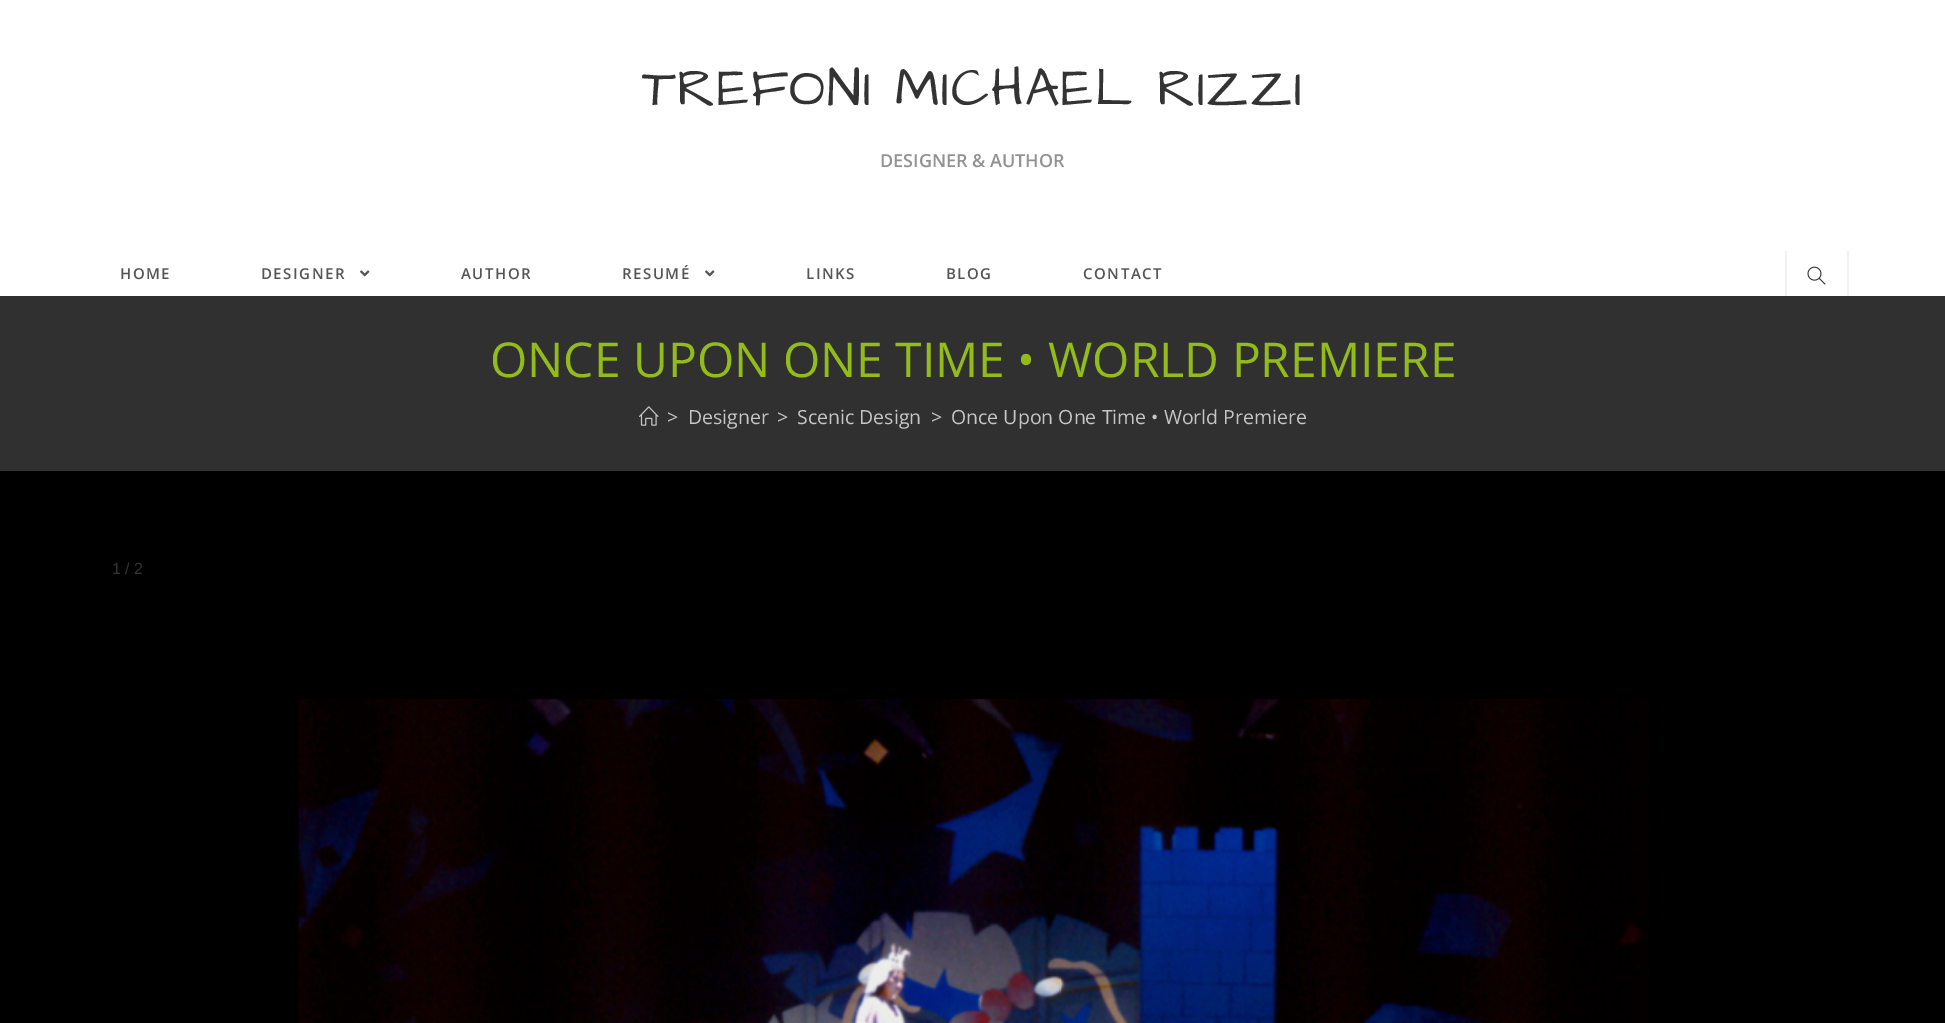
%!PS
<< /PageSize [1945 1023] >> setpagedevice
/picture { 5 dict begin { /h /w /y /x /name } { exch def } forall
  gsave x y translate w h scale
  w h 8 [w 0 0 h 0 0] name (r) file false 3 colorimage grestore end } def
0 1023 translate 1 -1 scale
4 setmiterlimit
0 setgray
0 0 1945 1023 rectfill
1 setgray
0 0 1945 296 rectfill
/ArchitectsDaughter-Regular [54 0 0 -54 0 0] selectfont
0.2 setgray
642 105 moveto 1.5 0 (TREFONI MICHAEL RIZZI) ashow
/OpenSans-SemiBold [18 0 0 -18 0 0] selectfont
0.573 setgray
880 167 moveto (DESIGNER & AUTHOR) show
/OpenSans-SemiBold [15 0 0 -15 0 0] selectfont
0.333 setgray
120 279 moveto 1.5 0 (HOME) ashow
261 279 moveto 1.5 0 (DESIGNER) ashow
(img1.rgb) 360 270 10 7 picture
461 279 moveto 1.5 0 (AUTHOR) ashow
622 279 moveto 1.5 0 (RESUMÉ) ashow
(img1.rgb) 705 270 10 7 picture
806 279 moveto 1.5 0 (LINKS) ashow
946 279 moveto 1.5 0 (BLOG) ashow
1083 279 moveto 1.5 0 (CONTACT) ashow
0.945 setgray
1847 251 2 45 rectfill
1785 251 2 45 rectfill
(img2.rgb) 1807 266 19 19 picture
0.188 setgray
0 296 1945 175 rectfill
/OpenSans-Regular [48 0 0 -48 0 0] selectfont
0.576 0.737 0.106 setrgbcolor
490 377 moveto (ONCE UPON ONE TIME • WORLD PREMIERE) show
(img3.rgb) 639 406 20 20 picture
/OpenSans-Regular [19.5 0 0 -19.5 0 0] selectfont
0.776 setgray
667 424 moveto (>) show
688 424 moveto (Designer) show
777 424 moveto (>) show
797 424 moveto (Scenic Design) show
931 424 moveto (>) show
951 424 moveto (Once Upon One Time • World Premiere) show
/LiberationSans-Regular [16 0 0 -16 0 0] selectfont
0.2 setgray
112 574 moveto (1 / 2) show
(img4.rgb) 298 698 1351 325 picture
showpage
